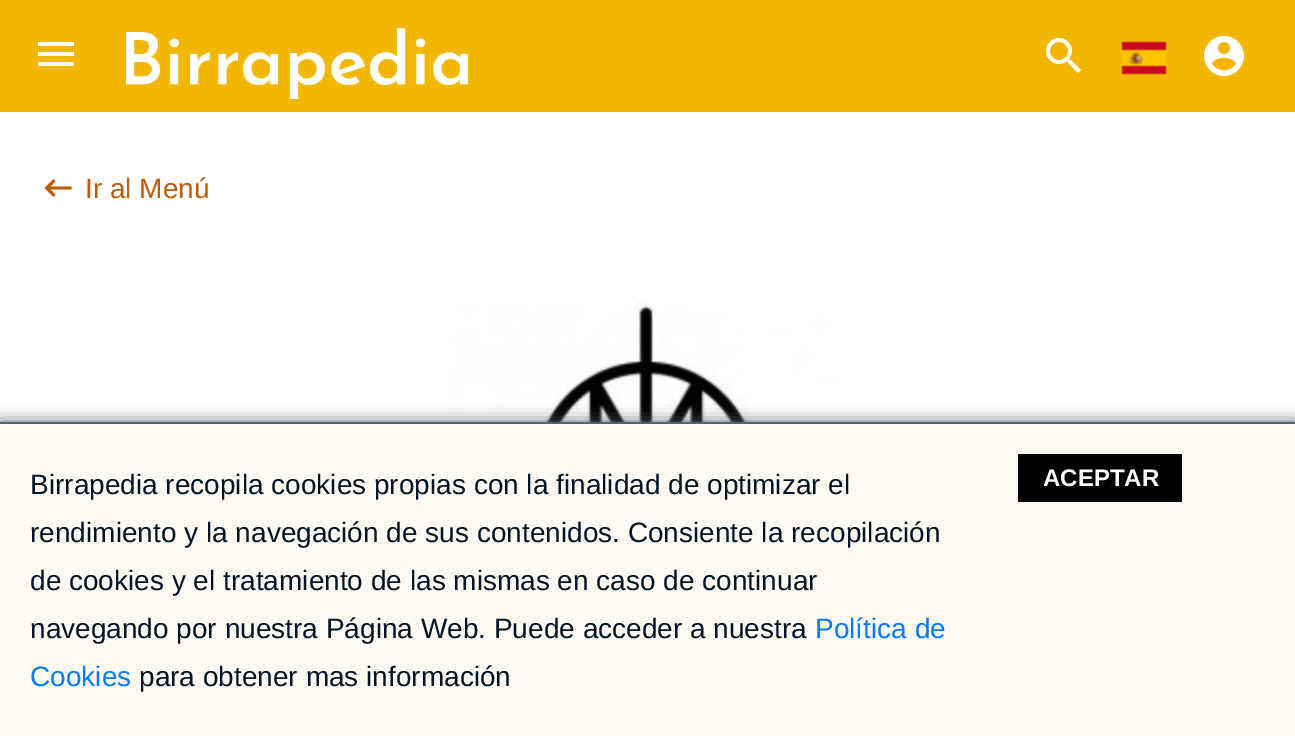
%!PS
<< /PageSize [1295 736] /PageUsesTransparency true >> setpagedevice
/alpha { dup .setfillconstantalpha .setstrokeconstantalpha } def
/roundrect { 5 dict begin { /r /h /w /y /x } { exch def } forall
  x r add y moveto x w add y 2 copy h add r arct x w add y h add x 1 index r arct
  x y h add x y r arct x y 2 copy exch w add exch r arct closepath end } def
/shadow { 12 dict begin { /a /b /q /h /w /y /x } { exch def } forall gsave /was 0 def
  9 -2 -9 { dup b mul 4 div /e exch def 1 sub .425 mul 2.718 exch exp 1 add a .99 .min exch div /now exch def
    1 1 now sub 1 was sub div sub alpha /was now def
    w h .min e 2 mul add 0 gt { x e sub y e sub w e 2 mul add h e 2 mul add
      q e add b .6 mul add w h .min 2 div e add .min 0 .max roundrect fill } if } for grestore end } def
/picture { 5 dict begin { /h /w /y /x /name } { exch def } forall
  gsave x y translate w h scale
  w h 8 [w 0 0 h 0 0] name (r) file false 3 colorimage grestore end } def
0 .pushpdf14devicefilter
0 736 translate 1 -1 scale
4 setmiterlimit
1 setgray
0 0 1295 736 rectfill
0.949 0.718 0.02 setrgbcolor
0 0 1295 112 rectfill
1 setgray
newpath 38 42 moveto 74 42 lineto 74 46 lineto 38 46 lineto closepath 38 56 moveto 38 52 lineto 74 52 lineto 74 56 lineto closepath 38 66 moveto 38 62 lineto 74 62 lineto 74 66 lineto closepath fill
(img1.rgb) 126 28 343 71 picture
(img2.rgb) 1046 38 35 35 picture
(img3.rgb) 1121 41 46 34 picture
(img4.rgb) 1204 36 40 40 picture
0.749 0.357 0.016 setrgbcolor
newpath 71.5 186.5 moveto 71.5 189.5 lineto 50.5 189.5 lineto 55.5 195 lineto 53.5 197 lineto 44.5 188 lineto 53.5 179 lineto 55.5 181 lineto 50.5 186.5 lineto closepath fill
/LiberationSans-Regular [28 0 0 -28 0 0] selectfont
85 198 moveto (Ir al Menú) show
(img5.rgb) 450 302 394 120 picture
0.337 0.388 0.431 setrgbcolor
0 422 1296 314 0 8 1 shadow
1 0.976 0.957 setrgbcolor
0 424 1295 312 rectfill
0.337 0.388 0.431 setrgbcolor
0 422 1295 2 rectfill
0 0.078 0.141 setrgbcolor
30 494 moveto (Birrapedia recopila cookies propias con la finalidad de optimizar el) show
30 542 moveto (rendimiento y la navegación de sus contenidos. Consiente la recopilación) show
30 590 moveto (de cookies y el tratamiento de las mismas en caso de continuar) show
30 638 moveto (navegando por nuestra Página Web. Puede acceder a nuestra) show
0 0.482 1 setrgbcolor
815 638 moveto (Política de) show
30 686 moveto (Cookies) show
0 0.078 0.141 setrgbcolor
139 686 moveto (para obtener mas información) show
0 setgray
1018 454 164 48 rectfill
/LiberationSans-Bold [24 0 0 -24 0 0] selectfont
1 setgray
1043 486 moveto (ACEPTAR) show
.poppdf14devicefilter showpage
